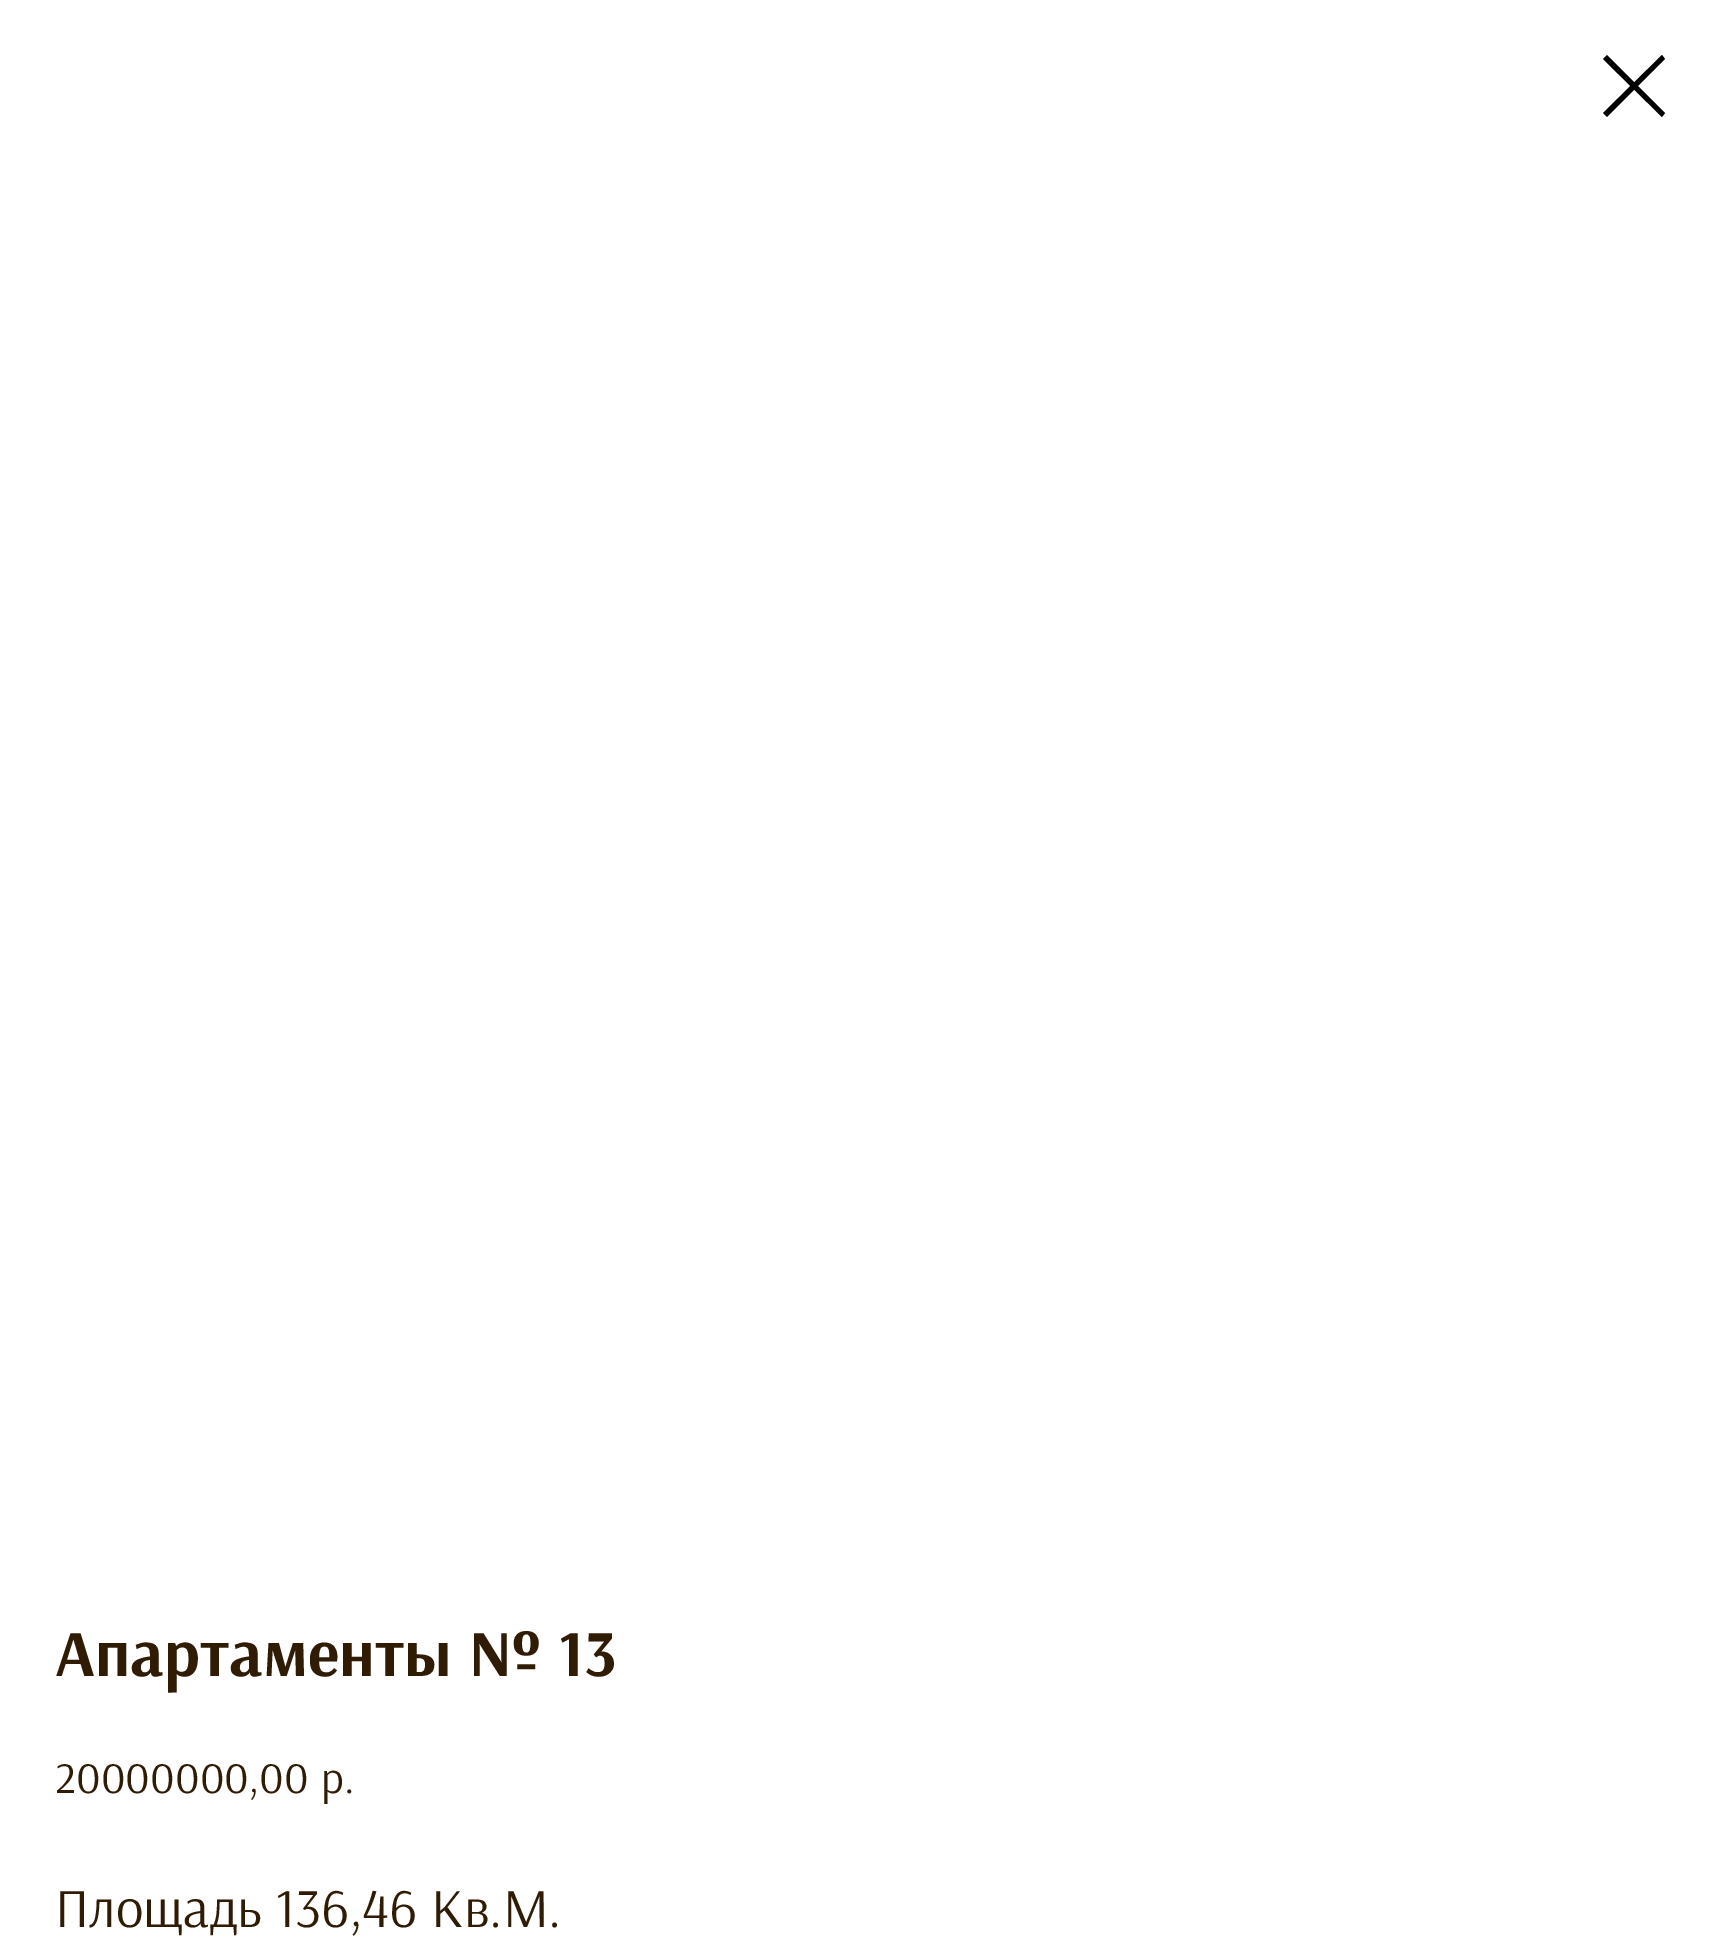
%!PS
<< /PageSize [1719 1952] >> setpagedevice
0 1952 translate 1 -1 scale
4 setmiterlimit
1 setgray
0 0 1719 1952 rectfill
0 setgray
newpath 1603 59 moveto 1607 55 lineto 1665 113 lineto 1662 117 lineto closepath eofill
newpath 1662 55 moveto 1665 59 lineto 1607 117 lineto 1603 113 lineto closepath eofill
/Arsenal-Bold [66 0 0 -66 0 0] selectfont
0.188 0.11 0.02 setrgbcolor
55 1676 moveto (Апартаменты № 13) show
/Arsenal-Regular [44 0 0 -44 0 0] selectfont
55 1793 moveto (20000000,00) show
321 1793 moveto (р.) show
/Arsenal-Regular [55 0 0 -55 0 0] selectfont
55 1927 moveto (Площадь 136,46 Кв.М.) show
showpage
